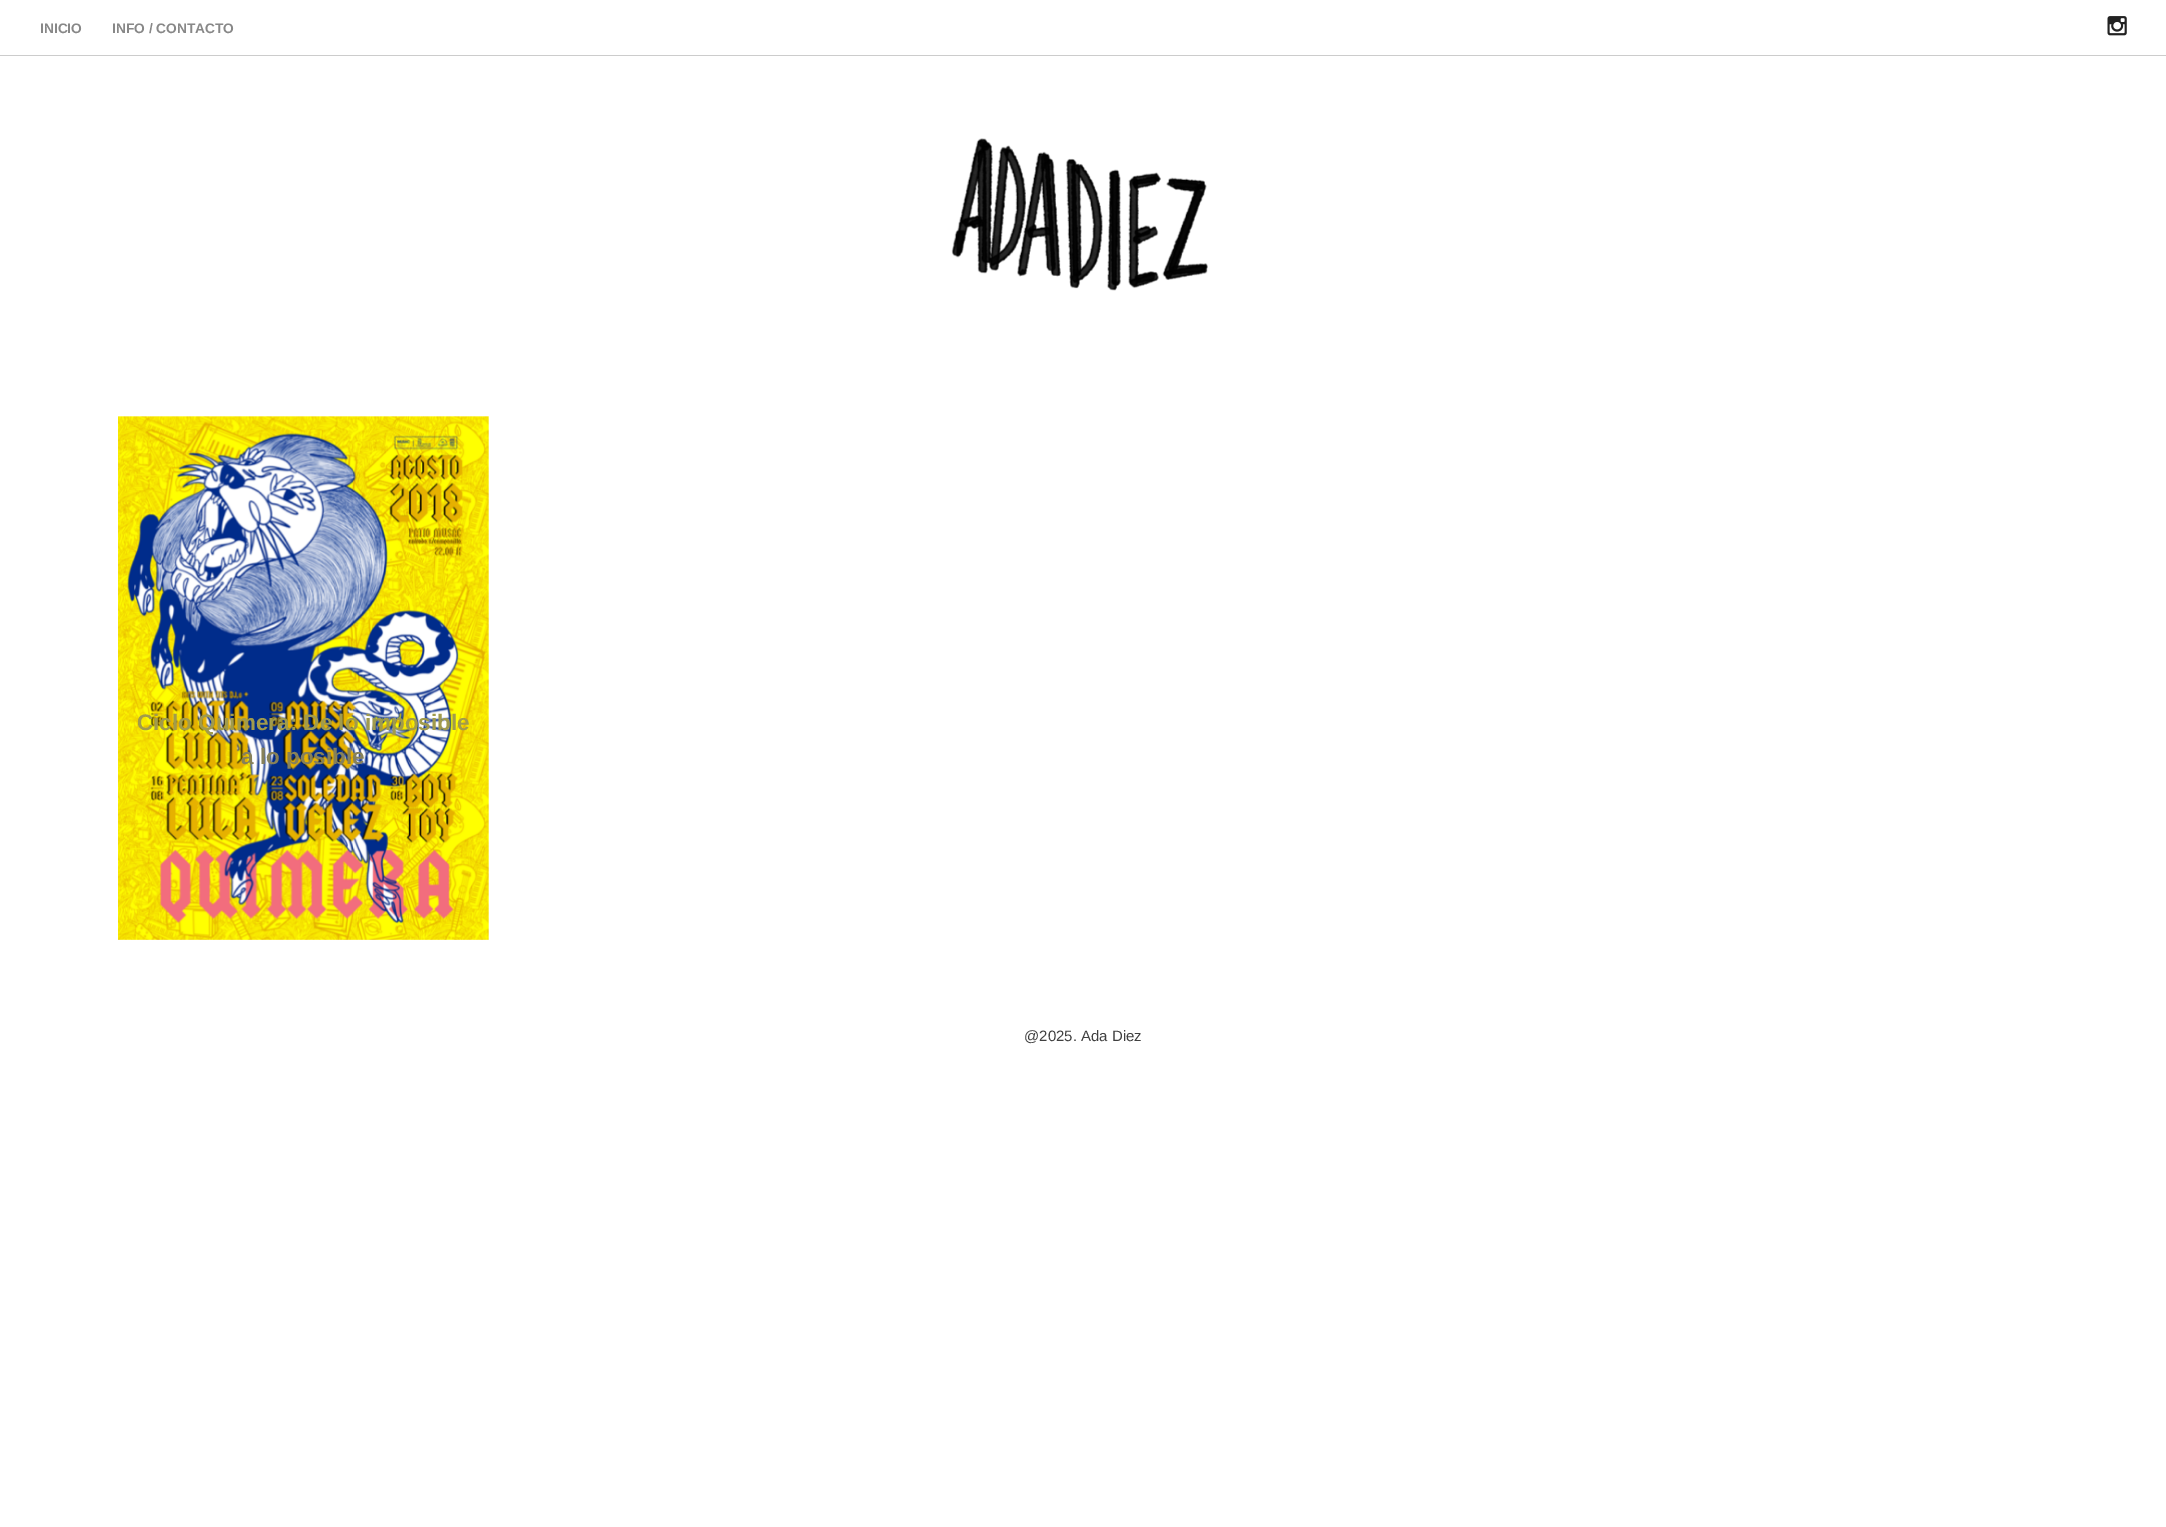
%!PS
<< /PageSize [2166 1527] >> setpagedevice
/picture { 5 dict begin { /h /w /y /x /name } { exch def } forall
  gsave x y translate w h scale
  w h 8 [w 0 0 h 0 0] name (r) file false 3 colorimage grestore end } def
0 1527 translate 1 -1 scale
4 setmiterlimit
1 setgray
0 0 2166 1527 rectfill
0.8 setgray
0 55 2166 1 rectfill
/LiberationSans-Bold [13.75 0 0 -13.75 0 0] selectfont
0.533 setgray
40 33 moveto (INICIO) show
112 33 moveto (INFO / CONTACTO) show
(img1.rgb) 2107 16 20 20 picture
(img2.rgb) 951 138 257 153 picture
(img3.rgb) 118 416 371 524 picture
/LiberationSans-Bold [22.5 0 0 -22.5 0 0] selectfont
0.631 0.608 0.298 setrgbcolor
137 730 moveto (Ciclo Quimera: De lo imposible) show
0.529 0.506 0.349 setrgbcolor
241 764 moveto (a lo posible) show
/LiberationSans-Regular [15 0 0 -15 0 0] selectfont
0.251 setgray
1024 1041 moveto (@2025. Ada Diez) show
showpage
